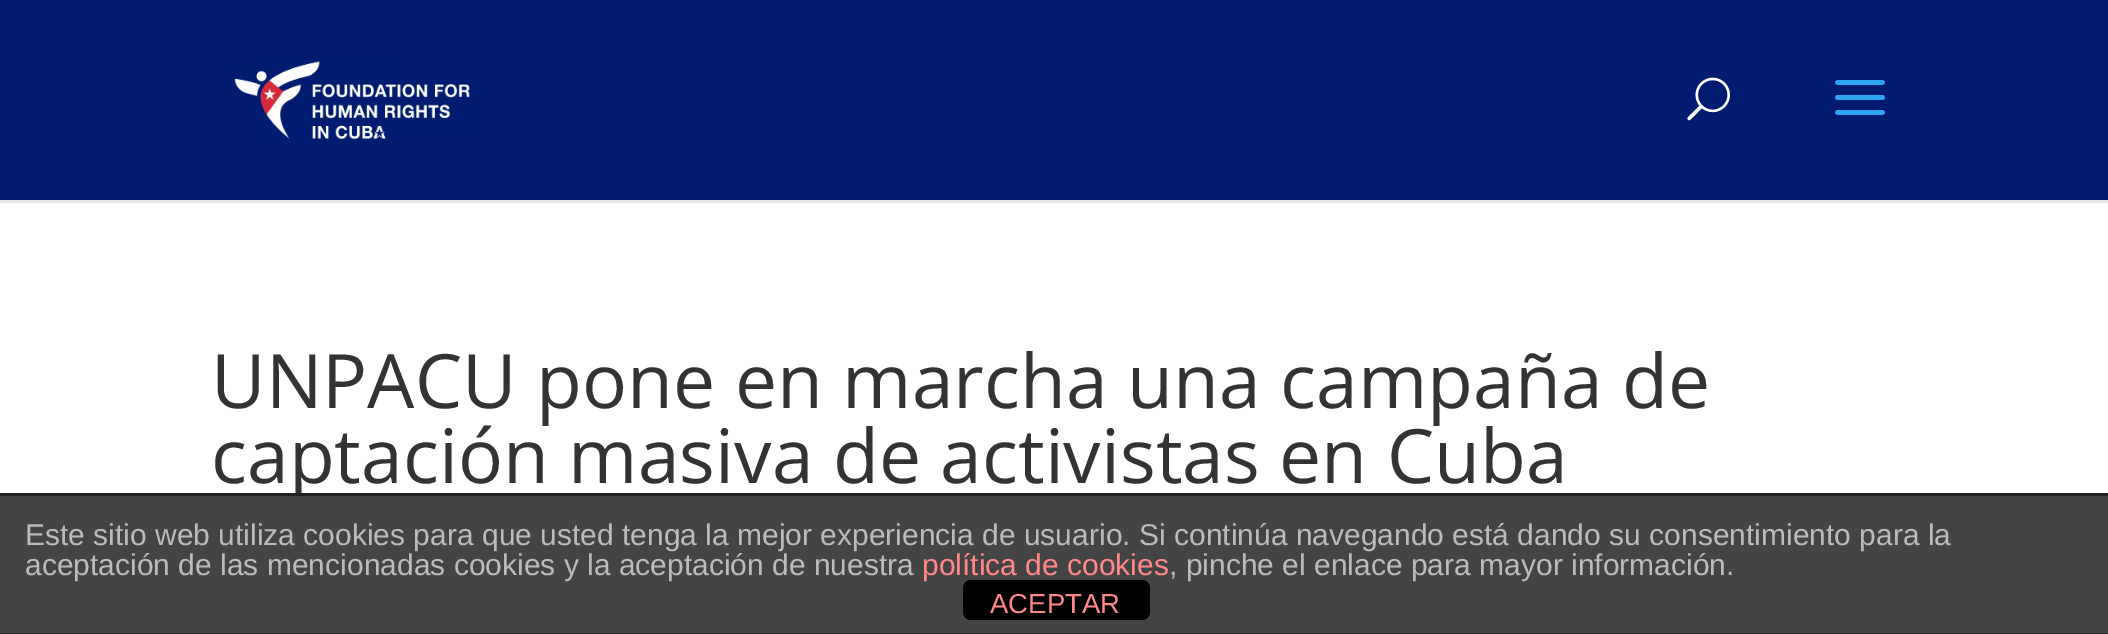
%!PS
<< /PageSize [2108 634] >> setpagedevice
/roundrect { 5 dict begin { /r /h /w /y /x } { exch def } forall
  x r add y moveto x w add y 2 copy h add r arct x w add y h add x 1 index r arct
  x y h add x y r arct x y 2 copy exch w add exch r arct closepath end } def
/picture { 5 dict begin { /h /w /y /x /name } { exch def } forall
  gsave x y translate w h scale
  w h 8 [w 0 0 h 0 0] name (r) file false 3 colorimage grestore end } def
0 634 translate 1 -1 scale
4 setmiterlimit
1 setgray
0 0 2108 634 rectfill
0.902 setgray
0 200 2108 3 rectfill
0 0.106 0.439 setrgbcolor
0 0 2108 200 rectfill
(img1.rgb) 234 61 236 79 picture
(img2.rgb) 1687 77 43 44 picture
(img3.rgb) 1835 80 50 35 picture
/OpenSans-Regular [75 0 0 -75 0 0] selectfont
0.2 setgray
211 408 moveto (UNPACU pone en marcha una campaña de) show
211 483 moveto (captación masiva de activistas en Cuba) show
0.267 setgray
0 496 2108 137 rectfill
0.133 setgray
0 493 2108 3 rectfill
0 633 2108 1 rectfill
/LiberationSans-Regular [30 0 0 -30 0 0] selectfont
0.733 setgray
25 545 moveto (Este sitio web utiliza cookies para que usted tenga la mejor experiencia de usuario. Si continúa navegando está dando su consentimiento para la) show
25 575 moveto (aceptación de las mencionadas cookies y la aceptación de nuestra) show
0 setgray
963 580 187 40 8 roundrect fill
1 0.533 0.533 setrgbcolor
922 575 moveto (política de cookies) show
0.733 setgray
1169 575 moveto (, pinche el enlace para mayor información.) show
/LiberationSans-Regular [27.5 0 0 -27.5 0 0] selectfont
1 0.533 0.533 setrgbcolor
990 613 moveto (ACEPTAR) show
showpage
